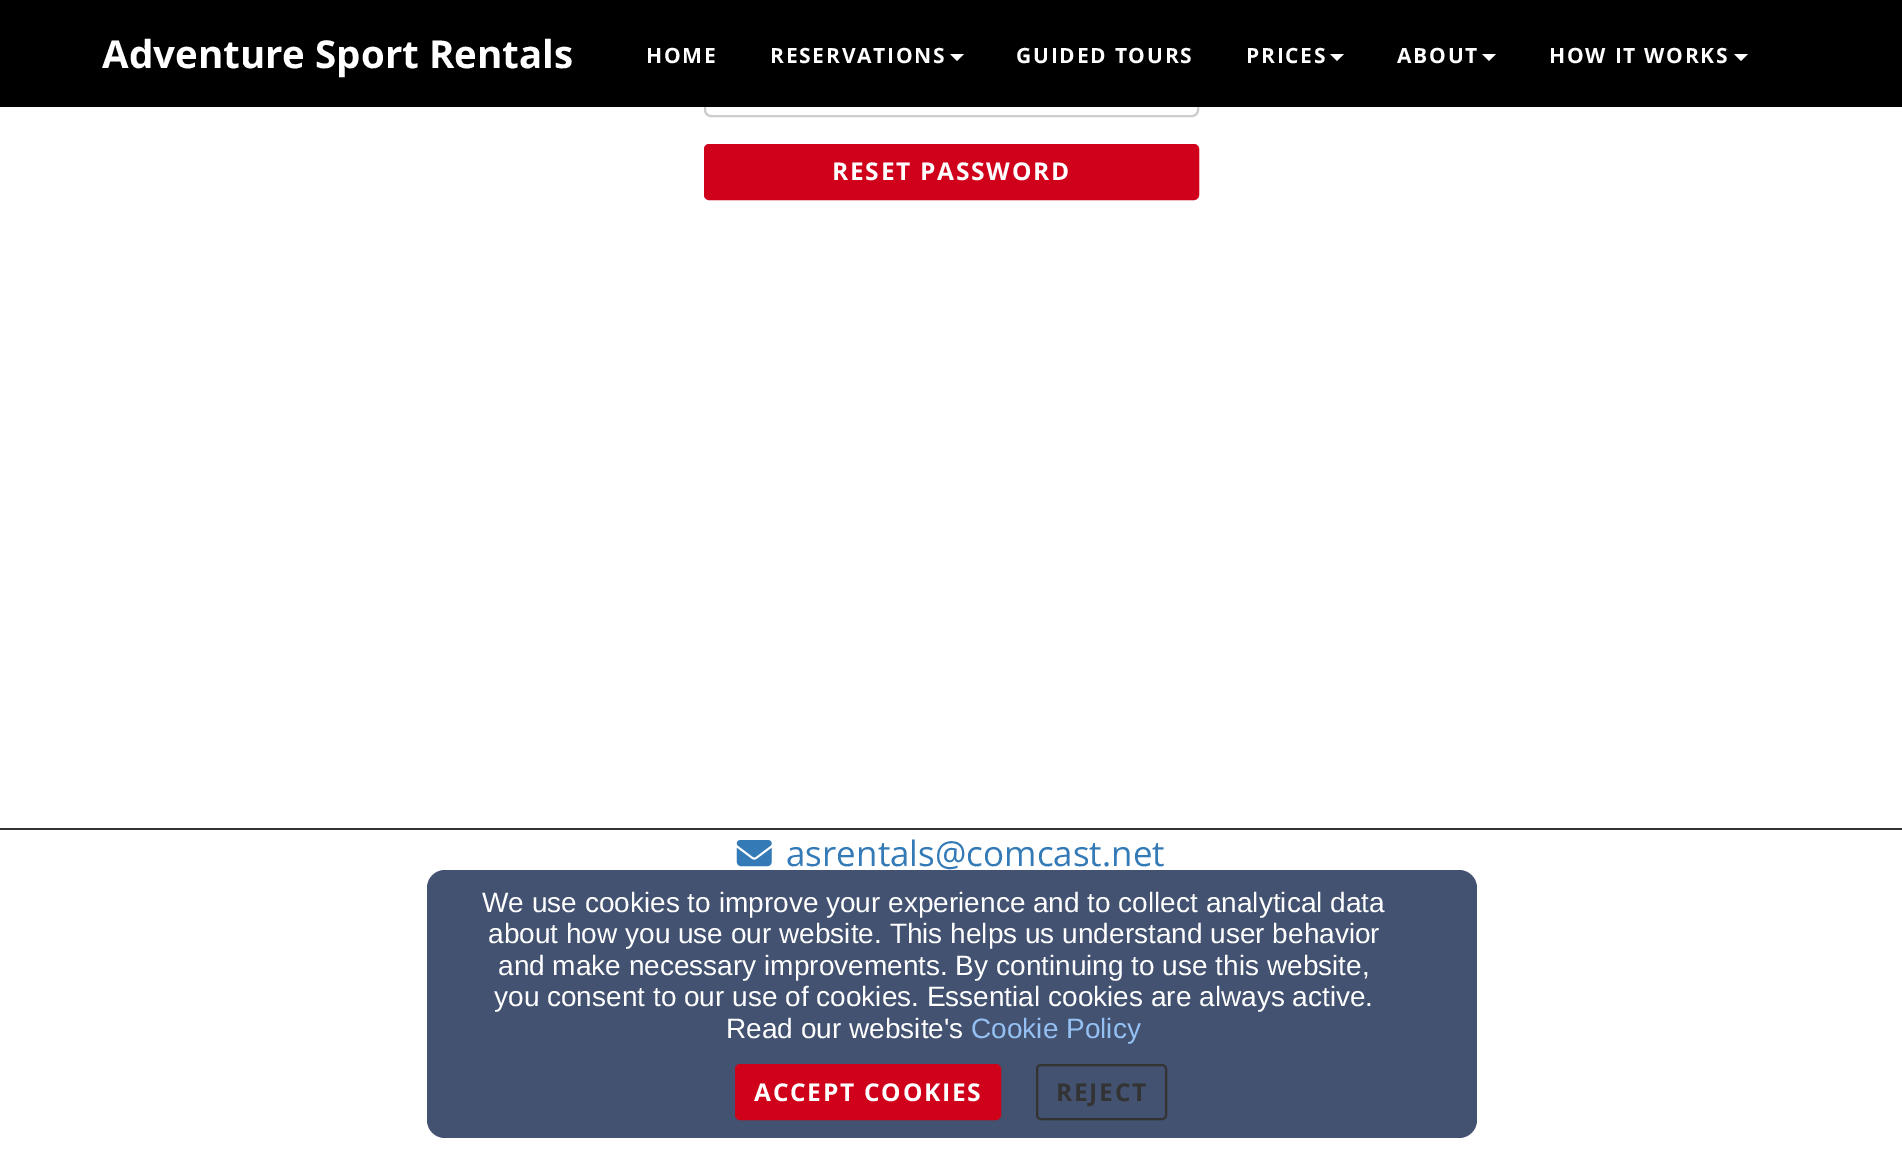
%!PS
<< /PageSize [1902 1154] >> setpagedevice
/roundrect { 5 dict begin { /r /h /w /y /x } { exch def } forall
  x r add y moveto x w add y 2 copy h add r arct x w add y h add x 1 index r arct
  x y h add x y r arct x y 2 copy exch w add exch r arct closepath end } def
/picture { 5 dict begin { /h /w /y /x /name } { exch def } forall
  gsave x y translate w h scale
  w h 8 [w 0 0 h 0 0] name (r) file false 3 colorimage grestore end } def
0 1154 translate 1 -1 scale
4 setmiterlimit
1 setgray
0 0 1902 1154 rectfill
0.8 setgray
2 setlinewidth
705 59 493 57 6 roundrect stroke
0 setgray
0 0 1902 107 rectfill
/OpenSans-Bold [38.5 0 0 -38.5 0 0] selectfont
1 setgray
102 68 moveto (Adventure Sport Rentals) show
/OpenSans-Bold [21 0 0 -21 0 0] selectfont
646 63 moveto 1.75 0 (HOME) ashow
770 63 moveto 1.75 0 (RESERVATIONS) ashow
newpath 950 54 moveto 964 54 lineto 957 61 lineto closepath fill
1016 63 moveto 1.75 0 (GUIDED TOURS) ashow
1246 63 moveto 1.75 0 (PRICES) ashow
newpath 1330 54 moveto 1344 54 lineto 1337 61 lineto closepath fill
1397 63 moveto 1.75 0 (ABOUT) ashow
newpath 1482 54 moveto 1496 54 lineto 1489 61 lineto closepath fill
1549 63 moveto 1.75 0 (HOW IT WORKS) ashow
newpath 1734 54 moveto 1748 54 lineto 1741 61 lineto closepath fill
0.816 0.008 0.106 setrgbcolor
705 145 493 54 4 roundrect gsave fill grestore
stroke
/OpenSans-Bold [24.5 0 0 -24.5 0 0] selectfont
1 setgray
832 180 moveto 1.75 0 (RESET PASSWORD) ashow
0.2 setgray
0 828 1902 2 rectfill
(img1.rgb) 736 840 36 27 picture
/OpenSans-Regular [35 0 0 -35 0 0] selectfont
0.2 0.478 0.718 setrgbcolor
786 866 moveto (asrentals@comcast.net) show
0.263 0.322 0.439 setrgbcolor
427 870 1050 268 18 roundrect fill
/LiberationSans-Regular [28 0 0 -28 0 0] selectfont
1 setgray
482 912 moveto (We use cookies to improve your experience and to collect analytical data) show
488 943 moveto (about how you use our website. This helps us understand user behavior) show
498 975 moveto (and make necessary improvements. By continuing to use this website,) show
494 1006 moveto (you consent to our use of cookies. Essential cookies are always active.) show
726 1038 moveto (Read our website's) show
0.58 0.753 0.953 setrgbcolor
971 1038 moveto (Cookie Policy) show
0.816 0.008 0.106 setrgbcolor
736 1065 264 54 4 roundrect gsave fill grestore
stroke
/OpenSans-Bold [24.5 0 0 -24.5 0 0] selectfont
1 setgray
754 1101 moveto 1.75 0 (ACCEPT COOKIES) ashow
0.2 setgray
1037 1065 129 54 4 roundrect stroke
1056 1101 moveto 1.75 0 (REJECT) ashow
showpage
